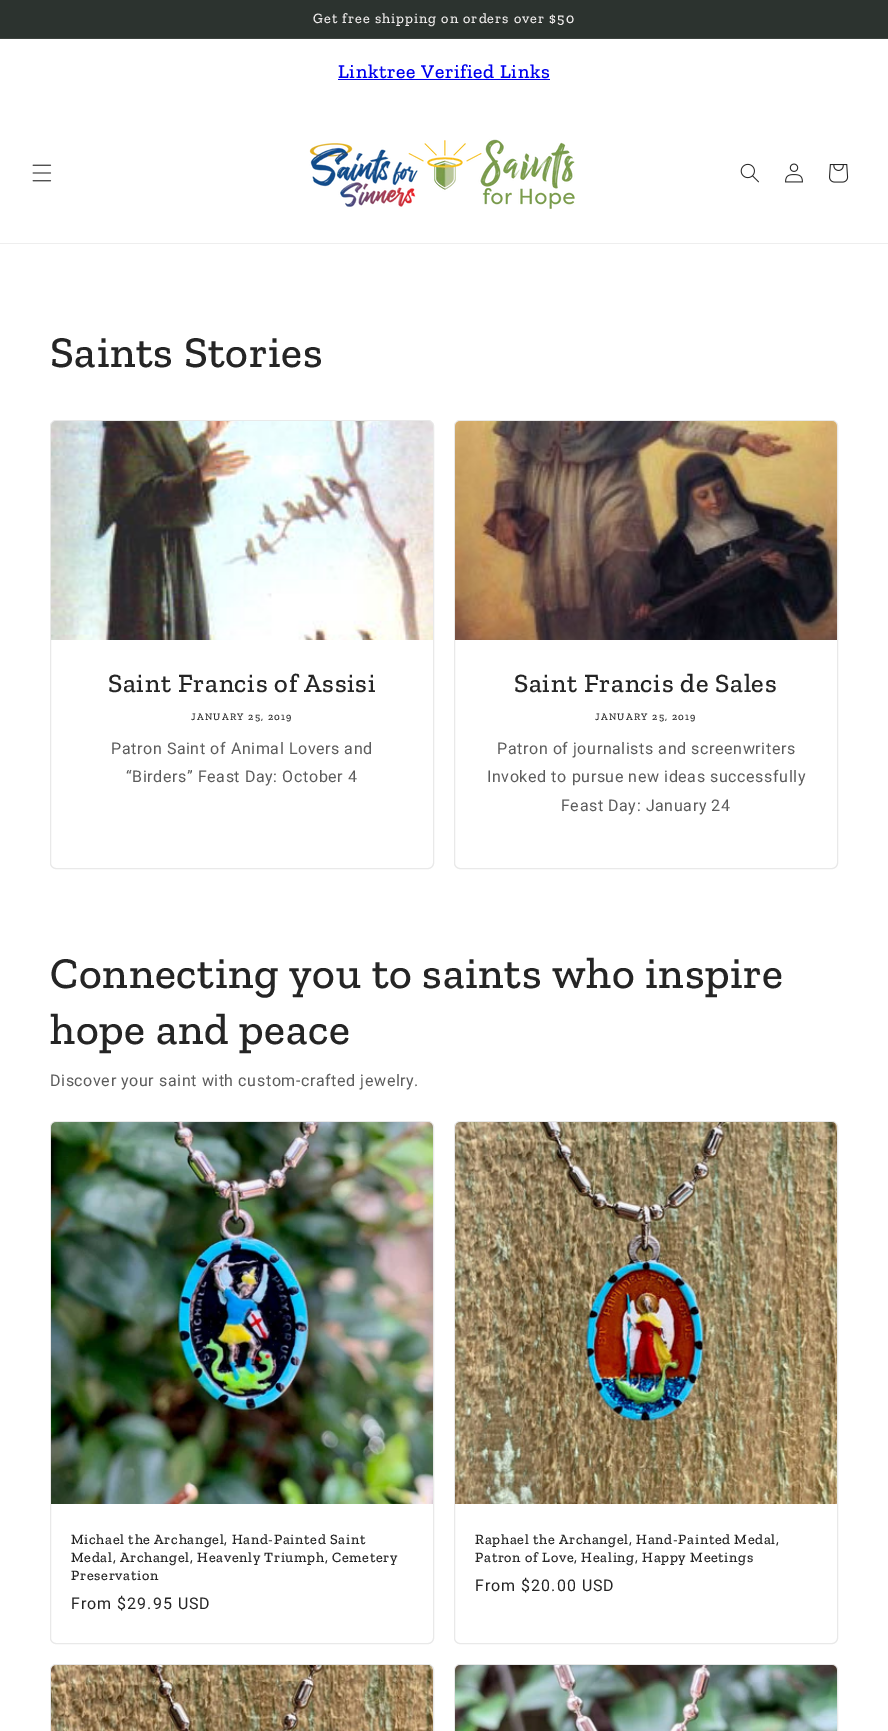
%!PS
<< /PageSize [888 1731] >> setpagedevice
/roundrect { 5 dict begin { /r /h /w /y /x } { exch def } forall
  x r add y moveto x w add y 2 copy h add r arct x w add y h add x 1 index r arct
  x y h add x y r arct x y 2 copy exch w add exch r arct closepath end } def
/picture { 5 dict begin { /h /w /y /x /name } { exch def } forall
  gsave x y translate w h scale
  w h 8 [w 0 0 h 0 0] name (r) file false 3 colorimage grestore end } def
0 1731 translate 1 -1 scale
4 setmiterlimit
1 setgray
0 0 888 1731 rectfill
0.173 0.2 0.184 setrgbcolor
0 0 888 38 rectfill
0.235 0.259 0.243 setrgbcolor
0 38 888 1 rectfill
/ZillaSlab-Medium [14.3 0 0 -14.3 0 0] selectfont
0.937 0.925 0.925 setrgbcolor
313 23 moveto 1 0 (Get free shipping on orders over $50) ashow
/ZillaSlab-Medium [19.75 0 0 -19.75 0 0] selectfont
0 0 0.933 setrgbcolor
338 78 moveto 0.65 0 (Linktree Verified Links) ashow
338 79 212 1 rectfill
0.933 setgray
0 243 888 1 rectfill
(img1.rgb) 32 164 20 18 picture
(img2.rgb) 309 139 266 70 picture
(img3.rgb) 740 163 19 20 picture
(img4.rgb) 785 163 18 20 picture
(img5.rgb) 829 164 20 19 picture
/ZillaSlab-Medium [44 0 0 -44 0 0] selectfont
0.145 setgray
50 367 moveto 0.65 0 (Saints Stories) ashow
0.914 setgray
50.5 420.5 383 448 5.5 roundrect stroke
(img6.rgb) 51 421 382 219 picture
/ZillaSlab-Medium [26.4 0 0 -26.4 0 0] selectfont
0.145 setgray
108 692 moveto 0.65 0 (Saint Francis of Assisi) ashow
/ZillaSlab-Medium [10 0 0 -10 0 0] selectfont
191 720 moveto 1.25 0 (JANUARY 25, 2019) ashow
/Roboto-Regular [16 0 0 -16 0 0] selectfont
0.361 setgray
111 754 moveto 0.6 0 (Patron Saint of Animal Lovers and) ashow
126 782 moveto 0.6 0 (“Birders” Feast Day: October 4) ashow
0.914 setgray
454.5 420.5 383 448 5.5 roundrect stroke
(img7.rgb) 455 421 382 219 picture
/ZillaSlab-Medium [26.4 0 0 -26.4 0 0] selectfont
0.145 setgray
514 692 moveto 0.65 0 (Saint Francis de Sales) ashow
/ZillaSlab-Medium [10 0 0 -10 0 0] selectfont
595 720 moveto 1.25 0 (JANUARY 25, 2019) ashow
/Roboto-Regular [16 0 0 -16 0 0] selectfont
0.361 setgray
497 754 moveto 0.6 0 (Patron of journalists and screenwriters) ashow
487 782 moveto 0.6 0 (Invoked to pursue new ideas successfully) ashow
561 811 moveto 0.6 0 (Feast Day: January 24) ashow
/ZillaSlab-Medium [44 0 0 -44 0 0] selectfont
0.145 setgray
50 988 moveto 0.65 0 (Connecting you to saints who inspire) ashow
50 1044 moveto 0.65 0 (hope and peace) ashow
/Roboto-Regular [16 0 0 -16 0 0] selectfont
0.361 setgray
50 1086 moveto 0.6 0 (Discover your saint with custom-crafted jewelry.) ashow
0.914 setgray
50.5 1121.5 383 522 5.5 roundrect stroke
(img8.rgb) 51 1122 382 382 picture
/ZillaSlab-Medium [14.3 0 0 -14.3 0 0] selectfont
0.145 setgray
71 1544 moveto 0.65 0 (Michael the Archangel, Hand-Painted Saint) ashow
71 1562 moveto 0.65 0 (Medal, Archangel, Heavenly Triumph, Cemetery) ashow
71 1580 moveto 0.65 0 (Preservation) ashow
/Roboto-Regular [16 0 0 -16 0 0] selectfont
71 1609 moveto 1 0 (From $29.95 USD) ashow
0.914 setgray
454.5 1121.5 383 522 5.5 roundrect stroke
(img9.rgb) 455 1122 382 382 picture
/ZillaSlab-Medium [14.3 0 0 -14.3 0 0] selectfont
0.145 setgray
475 1544 moveto 0.65 0 (Raphael the Archangel, Hand-Painted Medal,) ashow
475 1562 moveto 0.65 0 (Patron of Love, Healing, Happy Meetings) ashow
/Roboto-Regular [16 0 0 -16 0 0] selectfont
475 1591 moveto 1 0 (From $20.00 USD) ashow
0.914 setgray
50.5 1664.5 383 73 5.5 roundrect stroke
(img10.rgb) 51 1665 382 66 picture
454.5 1664.5 383 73 5.5 roundrect stroke
(img11.rgb) 455 1665 382 66 picture
showpage
